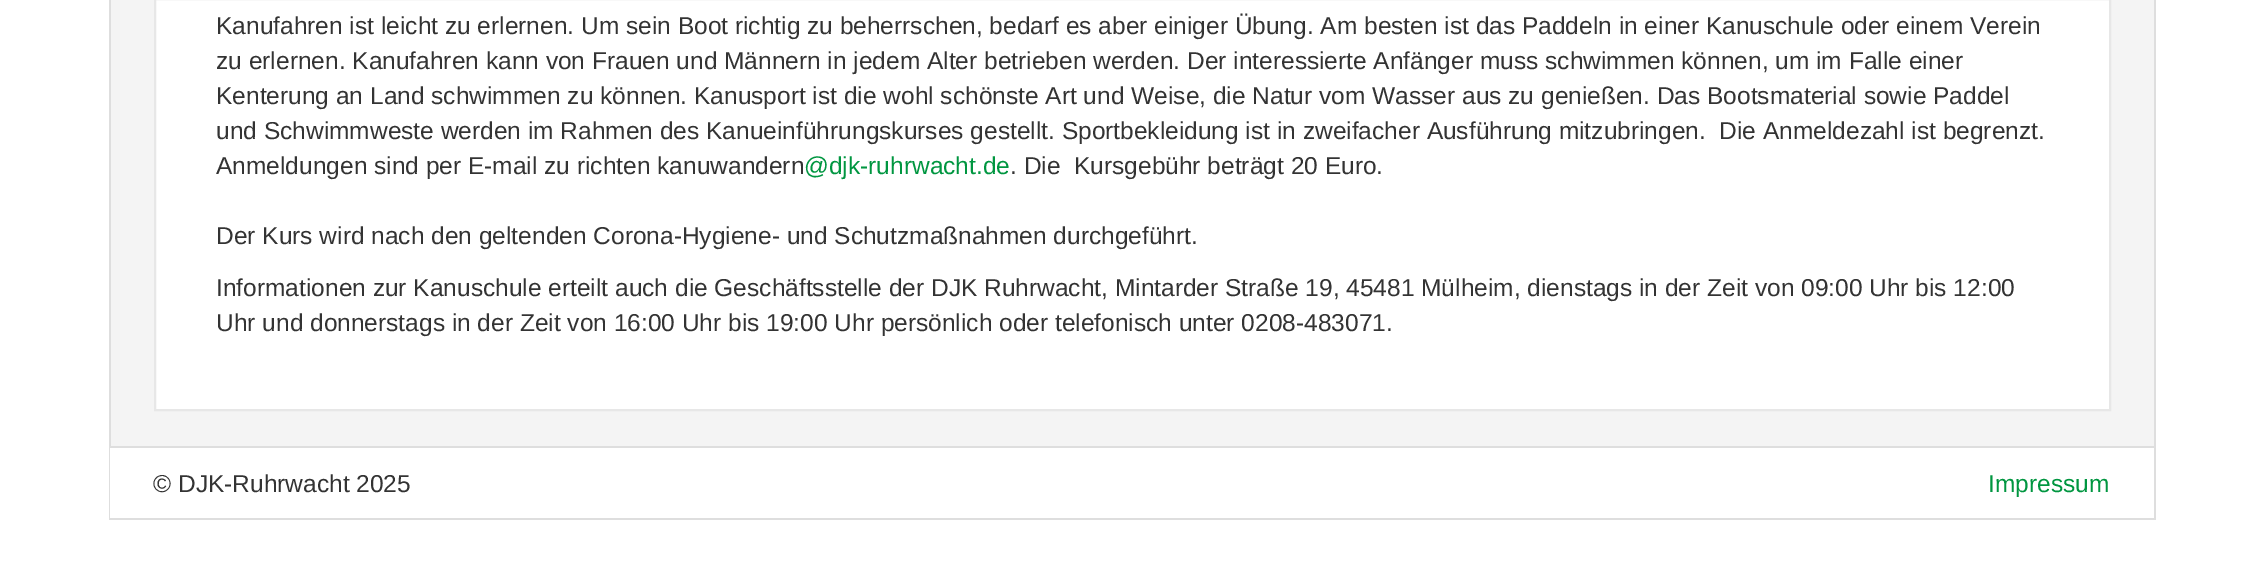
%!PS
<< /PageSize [2262 563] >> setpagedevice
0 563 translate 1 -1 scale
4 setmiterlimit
1 setgray
0 0 2262 563 rectfill
0.957 setgray
111 0 2043 446 rectfill
0.871 setgray
2154 0 2 520 rectfill
109 0 2 520 rectfill
1 setgray
newpath 155 -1 moveto 2110 -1 lineto 2110 410 lineto 155 410 lineto closepath gsave fill grestore
0.906 setgray
2 setlinewidth
stroke
/LiberationSans-Regular [24.5 0 0 -24.5 0 0] selectfont
0.2 setgray
216 34 moveto (Kanufahren ist leicht zu erlernen. Um sein Boot richtig zu beherrschen, bedarf es aber einiger Übung. Am besten ist das Paddeln in einer Kanuschule oder einem Verein) show
216 69 moveto (zu erlernen. Kanufahren kann von Frauen und Männern in jedem Alter betrieben werden. Der interessierte Anfänger muss schwimmen können, um im Falle einer) show
216 104 moveto (Kenterung an Land schwimmen zu können. Kanusport ist die wohl schönste Art und Weise, die Natur vom Wasser aus zu genießen. Das Bootsmaterial sowie Paddel) show
216 139 moveto (und Schwimmweste werden im Rahmen des Kanueinführungskurses gestellt. Sportbekleidung ist in zweifacher Ausführung mitzubringen.  Die Anmeldezahl ist begrenzt.) show
216 174 moveto (Anmeldungen sind per E-mail zu richten kanuwandern) show
0 0.588 0.251 setrgbcolor
804 174 moveto (@djk-ruhrwacht.de) show
0.2 setgray
1010 174 moveto (. Die  Kursgebühr beträgt 20 Euro.) show
216 244 moveto (Der Kurs wird nach den geltenden Corona-Hygiene- und Schutzmaßnahmen durchgeführt.) show
216 296 moveto (Informationen zur Kanuschule erteilt auch die Geschäftsstelle der DJK Ruhrwacht, Mintarder Straße 19, 45481 Mülheim, dienstags in der Zeit von 09:00 Uhr bis 12:00) show
216 331 moveto (Uhr und donnerstags in der Zeit von 16:00 Uhr bis 19:00 Uhr persönlich oder telefonisch unter 0208-483071.) show
1 setgray
110 448 1 70 rectfill
0.871 setgray
110 446 2044 2 rectfill
110 518 2044 2 rectfill
0.2 setgray
153 492 moveto (© DJK-Ruhrwacht 2025) show
0 0.588 0.251 setrgbcolor
1988 492 moveto (Impressum) show
showpage
